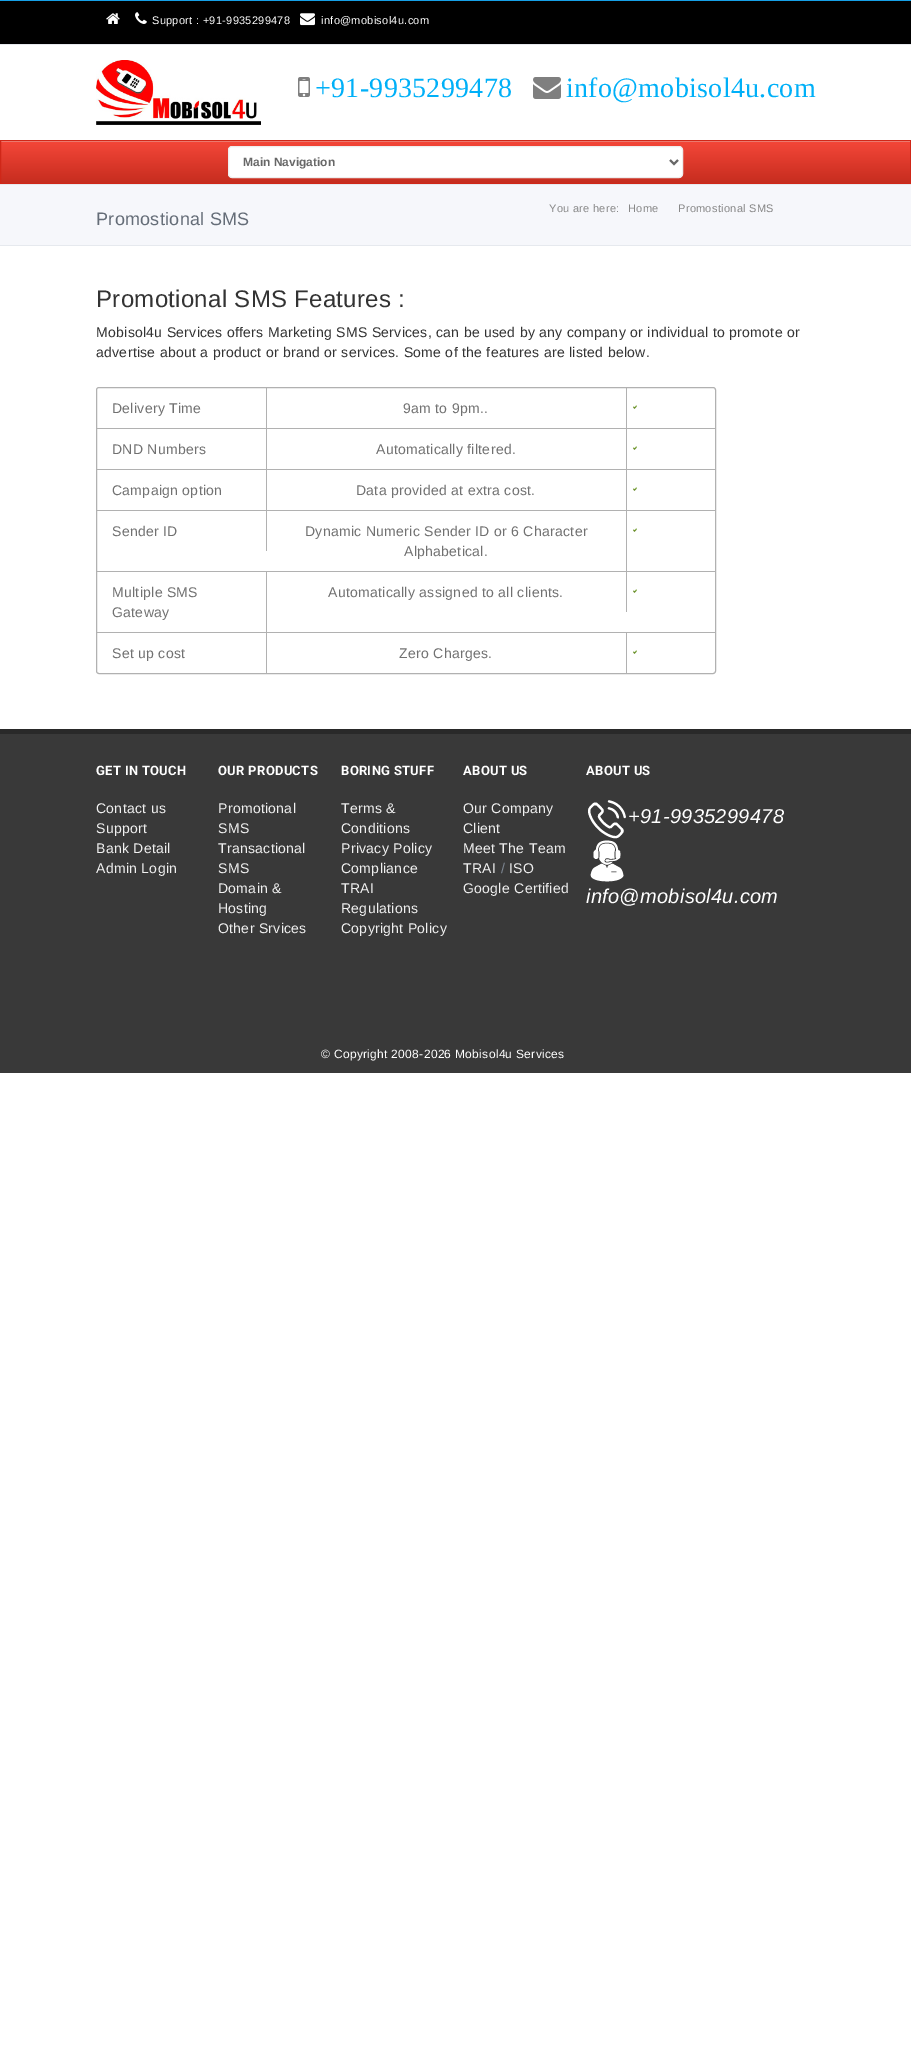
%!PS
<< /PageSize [911 2071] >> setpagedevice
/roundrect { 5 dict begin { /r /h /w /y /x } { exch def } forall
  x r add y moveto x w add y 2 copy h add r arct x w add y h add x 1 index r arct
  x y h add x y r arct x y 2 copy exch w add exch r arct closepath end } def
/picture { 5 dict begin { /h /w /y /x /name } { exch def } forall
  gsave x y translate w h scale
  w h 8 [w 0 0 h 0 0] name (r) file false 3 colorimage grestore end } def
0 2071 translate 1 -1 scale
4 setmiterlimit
1 setgray
0 0 911 2071 rectfill
0 setgray
0 1 911 43 rectfill
0.086 0.624 0.902 setrgbcolor
0 0 911 1 rectfill
0.902 0.914 0.933 setrgbcolor
0 44 911 1 rectfill
(img1.rgb) 106 13 14 11 picture
(img2.rgb) 135 12 12 12 picture
/LiberationSans-Regular [11 0 0 -11 0 0] selectfont
1 setgray
152 24 moveto 0.3 0 (Support : +91-9935299478) ashow
(img3.rgb) 300 13 15 13 picture
321 24 moveto 0.3 0 (info@mobisol4u.com) ashow
(img4.rgb) 96 60 165 65 picture
(img5.rgb) 298 77 12 20 picture
/LiberationSerif-Regular [28 0 0 -28 0 0] selectfont
0 0.69 0.973 setrgbcolor
315 97 moveto 0.3 0 (+91-9935299478) ashow
(img6.rgb) 533 77 28 22 picture
566 97 moveto 0.3 0 (info@mobisol4u.com) ashow
gsave newpath 1 142 moveto 910 142 lineto 910 183 lineto 1 183 lineto closepath clip newpath
<< /ShadingType 2 /ColorSpace /DeviceRGB /Coords [456 141 456 183] /Extend [true true] /Function << /FunctionType 3 /Domain [0 1] /Functions [<< /FunctionType 2 /Domain [0 1] /C0 [0.949 0.271 0.216] /C1 [0.949 0.271 0.216] /N 1 >> << /FunctionType 2 /Domain [0 1] /C0 [0.949 0.271 0.216] /C1 [0.776 0.176 0.122] /N 1 >>] /Bounds [0.05] /Encode [0 1 0 1] >> >> shfill grestore
0.961 0.592 0.557 setrgbcolor
1 141 909 1 rectfill
0.816 0.153 0.094 setrgbcolor
0.5 140.5 910 43 rectstroke
1 setgray
228.5 146.5 454 31 3.5 roundrect gsave fill grestore
0.933 setgray
stroke
0.404 setgray
2 setlinewidth
newpath 670 160 moveto 674 164 lineto 678 160 lineto stroke
/LiberationSans-Bold [12 0 0 -12 0 0] selectfont
243 166 moveto (Main Navigation) show
0.965 0.969 0.984 setrgbcolor
0 185 911 60 rectfill
0.902 0.914 0.933 setrgbcolor
0 184 911 1 rectfill
0 245 911 1 rectfill
/LiberationSans-Regular [11 0 0 -11 0 0] selectfont
0.533 setgray
549 212 moveto 0.3 0 (You are here:) ashow
628 212 moveto 0.3 0 (Home) ashow
678 212 moveto 0.3 0 (Promostional SMS) ashow
/LiberationSans-Regular [18 0 0 -18 0 0] selectfont
0.396 0.427 0.471 setrgbcolor
96 225 moveto 0.3 0 (Promostional SMS) ashow
/LiberationSans-Regular [24 0 0 -24 0 0] selectfont
0.2 setgray
96 307 moveto 0.3 0 (Promotional SMS Features :) ashow
/LiberationSans-Regular [14 0 0 -14 0 0] selectfont
96 337 moveto 0.3 0 (Mobisol4u Services offers Marketing SMS Services, can be used by any company or individual to promote or) ashow
96 357 moveto 0.3 0 (advertise about a product or brand or services. Some of the features are listed below.) ashow
0.694 setgray
1 setlinewidth
96.5 387.5 619 286 2.5 roundrect stroke
97 428 618 1 rectfill
266 388 1 40 rectfill
0.443 setgray
112 413 moveto 0.3 0 (Delivery Time) ashow
0.694 setgray
626 388 1 40 rectfill
0.443 setgray
403 413 moveto 0.3 0 (9am to 9pm..) ashow
(img7.rgb) 633 405 4 4 picture
0.694 setgray
97 469 618 1 rectfill
266 429 1 40 rectfill
0.443 setgray
112 454 moveto 0.3 0 (DND Numbers) ashow
0.694 setgray
626 429 1 40 rectfill
0.443 setgray
376 454 moveto 0.3 0 (Automatically filtered.) ashow
(img7.rgb) 633 446 4 4 picture
0.694 setgray
97 510 618 1 rectfill
266 470 1 40 rectfill
0.443 setgray
112 495 moveto 0.3 0 (Campaign option) ashow
0.694 setgray
626 470 1 40 rectfill
0.443 setgray
356 495 moveto 0.3 0 (Data provided at extra cost.) ashow
(img7.rgb) 633 487 4 4 picture
0.694 setgray
97 571 618 1 rectfill
266 511 1 40 rectfill
0.443 setgray
112 536 moveto 0.3 0 (Sender ID) ashow
0.694 setgray
626 511 1 60 rectfill
0.443 setgray
305 536 moveto 0.3 0 (Dynamic Numeric Sender ID or 6 Character) ashow
404 556 moveto 0.3 0 (Alphabetical.) ashow
(img7.rgb) 633 528 4 4 picture
0.694 setgray
97 632 618 1 rectfill
266 572 1 60 rectfill
0.443 setgray
112 597 moveto 0.3 0 (Multiple SMS) ashow
112 617 moveto 0.3 0 (Gateway) ashow
0.694 setgray
626 572 1 40 rectfill
0.443 setgray
328 597 moveto 0.3 0 (Automatically assigned to all clients.) ashow
(img7.rgb) 633 589 4 4 picture
0.694 setgray
266 633 1 40 rectfill
0.443 setgray
112 658 moveto 0.3 0 (Set up cost) ashow
0.694 setgray
626 633 1 40 rectfill
0.443 setgray
399 658 moveto 0.3 0 (Zero Charges.) ashow
(img7.rgb) 633 650 4 4 picture
0.224 setgray
0 734 911 339 rectfill
0.161 setgray
0 729 911 5 rectfill
/Roboto-Bold [13 0 0 -13 0 0] selectfont
1 setgray
96 775 moveto 0.3 0 (GET IN TOUCH) ashow
/LiberationSans-Regular [14 0 0 -14 0 0] selectfont
0.941 setgray
96 813 moveto 0.3 0 (Contact us) ashow
96 833 moveto 0.3 0 (Support) ashow
96 853 moveto 0.3 0 (Bank Detail) ashow
96 873 moveto 0.3 0 (Admin Login) ashow
/Roboto-Bold [13 0 0 -13 0 0] selectfont
1 setgray
218 775 moveto 0.3 0 (OUR PRODUCTS) ashow
/LiberationSans-Regular [14 0 0 -14 0 0] selectfont
0.941 setgray
218 813 moveto 0.3 0 (Promotional) ashow
218 833 moveto 0.3 0 (SMS) ashow
218 853 moveto 0.3 0 (Transactional) ashow
218 873 moveto 0.3 0 (SMS) ashow
218 893 moveto 0.3 0 (Domain &) ashow
218 913 moveto 0.3 0 (Hosting) ashow
218 933 moveto 0.3 0 (Other Srvices) ashow
/Roboto-Bold [13 0 0 -13 0 0] selectfont
1 setgray
341 775 moveto 0.3 0 (BORING STUFF) ashow
/LiberationSans-Regular [14 0 0 -14 0 0] selectfont
0.941 setgray
341 813 moveto 0.3 0 (Terms &) ashow
341 833 moveto 0.3 0 (Conditions) ashow
341 853 moveto 0.3 0 (Privacy Policy) ashow
341 873 moveto 0.3 0 (Compliance) ashow
341 893 moveto 0.3 0 (TRAI) ashow
341 913 moveto 0.3 0 (Regulations) ashow
341 933 moveto 0.3 0 (Copyright Policy) ashow
/Roboto-Bold [13 0 0 -13 0 0] selectfont
1 setgray
463 775 moveto 0.3 0 (ABOUT US) ashow
/LiberationSans-Regular [14 0 0 -14 0 0] selectfont
0.941 setgray
463 813 moveto 0.3 0 (Our Company) ashow
463 833 moveto 0.3 0 (Client) ashow
463 853 moveto 0.3 0 (Meet The Team) ashow
463 873 moveto 0.3 0 (TRAI) ashow
0.494 0.529 0.576 setrgbcolor
501 873 moveto 0.3 0 (/) ashow
0.941 setgray
509 873 moveto 0.3 0 (ISO) ashow
463 893 moveto 0.3 0 (Google Certified) ashow
/Roboto-Bold [13 0 0 -13 0 0] selectfont
1 setgray
586 775 moveto 0.3 0 (ABOUT US) ashow
(img8.rgb) 588 800 38 39 picture
/LiberationSans-Italic [20 0 0 -20 0 0] selectfont
628 823 moveto 0.3 0 (+91-9935299478) ashow
(img9.rgb) 590 840 34 42 picture
586 903 moveto 0.3 0 (info@mobisol4u.com) ashow
/LiberationSans-Regular [12 0 0 -12 0 0] selectfont
321 1058 moveto 0.3 0 (© Copyright 2008-2026 Mobisol4u Services) ashow
showpage
